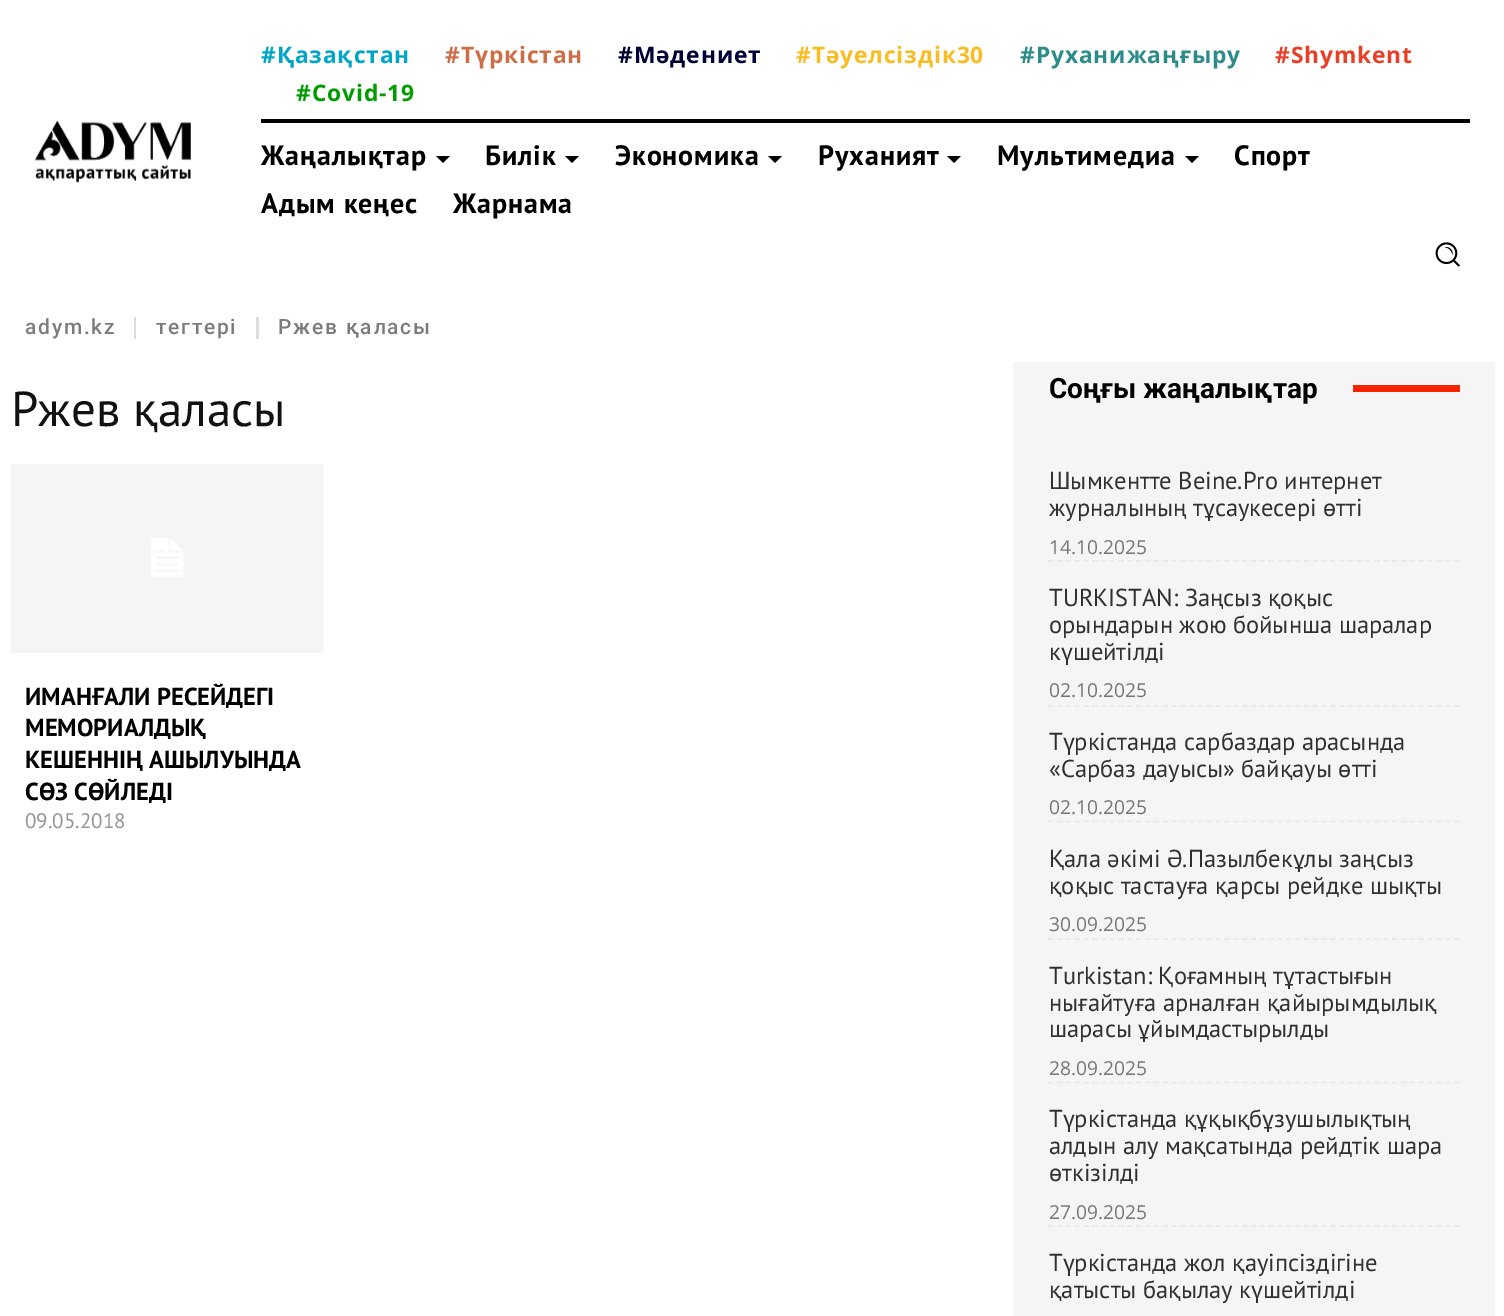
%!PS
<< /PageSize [1504 1316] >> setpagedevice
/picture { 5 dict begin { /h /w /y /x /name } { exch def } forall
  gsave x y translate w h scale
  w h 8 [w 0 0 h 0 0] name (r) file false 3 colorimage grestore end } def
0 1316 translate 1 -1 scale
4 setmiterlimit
1 setgray
0 0 1504 1316 rectfill
(img1.rgb) 35 120 156 63 picture
/OpenSans-Bold [22.75 0 0 -22.75 0 0] selectfont
0 0.651 0.784 setrgbcolor
261 63 moveto 0.9 0 (#Қазақстан) ashow
0.808 0.431 0.275 setrgbcolor
445 63 moveto 0.9 0 (#Түркістан) ashow
0 0 0.208 setrgbcolor
618 63 moveto 0.9 0 (#Мәдениет) ashow
0.973 0.741 0.129 setrgbcolor
796 63 moveto 0.9 0 (#Тәуелсіздік30) ashow
0.173 0.549 0.541 setrgbcolor
1020 63 moveto 0.9 0 (#Руханижаңғыру) ashow
0.91 0.251 0.149 setrgbcolor
1275 63 moveto 0.9 0 (#Shymkent) ashow
0.004 0.612 0 setrgbcolor
296 101 moveto 0.9 0 (#Covid-19) ashow
0 setgray
261 119 1209 4 rectfill
/PTSans-Bold [28 0 0 -28 0 0] selectfont
261 165 moveto 0.9 0 (Жаңалықтар) ashow
newpath 436 156 moveto 450 156 lineto 443 163 lineto closepath fill
485 165 moveto 0.9 0 (Билік) ashow
newpath 565 156 moveto 579 156 lineto 572 163 lineto closepath fill
615 165 moveto 0.9 0 (Экономика) ashow
newpath 768 156 moveto 782 156 lineto 775 163 lineto closepath fill
818 165 moveto 0.9 0 (Руханият) ashow
newpath 947 156 moveto 961 156 lineto 954 163 lineto closepath fill
997 165 moveto 0.9 0 (Мультимедиа) ashow
newpath 1185 156 moveto 1199 156 lineto 1192 163 lineto closepath fill
1234 165 moveto 0.9 0 (Спорт) ashow
261 213 moveto 0.9 0 (Адым кеңес) ashow
453 213 moveto 0.9 0 (Жарнама) ashow
(img2.rgb) 1435 242 25 25 picture
/Roboto-Medium [21 0 0 -21 0 0] selectfont
0.486 setgray
25 334 moveto 1.75 0 (adym.kz) ashow
0.867 setgray
134 317 2 22 rectfill
0.486 setgray
156 334 moveto 1.75 0 (тегтері) ashow
0.867 setgray
256 317 3 22 rectfill
0.486 setgray
278 334 moveto 1.75 0 (Ржев қаласы) ashow
/PTSans-Regular [49 0 0 -49 0 0] selectfont
0.067 setgray
11 426 moveto (Ржев қаласы) show
(img3.rgb) 10 464 314 189 picture
/PTSans-Bold [24.5 0 0 -24.5 0 0] selectfont
0 setgray
25 705 moveto (ИМАНҒАЛИ РЕСЕЙДЕГІ) show
25 736 moveto (МЕМОРИАЛДЫҚ) show
25 768 moveto (КЕШЕННІҢ АШЫЛУЫНДА) show
25 800 moveto (СӨЗ СӨЙЛЕДІ) show
/PTSans-Regular [21 0 0 -21 0 0] selectfont
0.588 setgray
25 828 moveto (09.05.2018) show
0.961 setgray
1013 362 482 954 rectfill
/Roboto-Bold [28 0 0 -28 0 0] selectfont
0 setgray
1049 398 moveto (Соңғы жаңалықтар) show
0.976 0.137 0.008 setrgbcolor
1353 385 107 7 rectfill
0.918 setgray
1.8 setlinewidth
[5.25 3.57] 0 setdash
newpath 1048 561 moveto 1459.5 561 lineto stroke
/PTSans-Regular [24.5 0 0 -24.5 0 0] selectfont
0.188 setgray
1049 489 moveto (Шымкентте Beine.Pro интернет) show
1049 516 moveto (журналының тұсаукесері өтті) show
/OpenSans-Regular [19.25 0 0 -19.25 0 0] selectfont
0.463 setgray
1049 554 moveto (14.10.2025) show
0.918 setgray
newpath 1048 706 moveto 1459.5 706 lineto stroke
/PTSans-Regular [24.5 0 0 -24.5 0 0] selectfont
0.188 setgray
1049 606 moveto (TURKISTAN: Заңсыз қоқыс) show
1049 633 moveto (орындарын жою бойынша шаралар) show
1049 660 moveto (күшейтілді) show
/OpenSans-Regular [19.25 0 0 -19.25 0 0] selectfont
0.463 setgray
1049 697 moveto (02.10.2025) show
0.918 setgray
newpath 1048 821.5 moveto 1459.5 821.5 lineto stroke
/PTSans-Regular [24.5 0 0 -24.5 0 0] selectfont
0.188 setgray
1049 750 moveto (Түркістанда сарбаздар арасында) show
1049 777 moveto («Сарбаз дауысы» байқауы өтті) show
/OpenSans-Regular [19.25 0 0 -19.25 0 0] selectfont
0.463 setgray
1049 814 moveto (02.10.2025) show
0.918 setgray
newpath 1048 939 moveto 1459.5 939 lineto stroke
/PTSans-Regular [24.5 0 0 -24.5 0 0] selectfont
0.188 setgray
1049 867 moveto (Қала әкімі Ә.Пазылбекұлы заңсыз) show
1049 894 moveto (қоқыс тастауға қарсы рейдке шықты) show
/OpenSans-Regular [19.25 0 0 -19.25 0 0] selectfont
0.463 setgray
1049 931 moveto (30.09.2025) show
0.918 setgray
newpath 1048 1082.5 moveto 1459.5 1082.5 lineto stroke
/PTSans-Regular [24.5 0 0 -24.5 0 0] selectfont
0.188 setgray
1049 984 moveto (Turkistan: Қоғамның тұтастығын) show
1049 1011 moveto (нығайтуға арналған қайырымдылық) show
1049 1037 moveto (шарасы ұйымдастырылды) show
/OpenSans-Regular [19.25 0 0 -19.25 0 0] selectfont
0.463 setgray
1049 1075 moveto (28.09.2025) show
0.918 setgray
newpath 1048 1226 moveto 1459.5 1226 lineto stroke
/PTSans-Regular [24.5 0 0 -24.5 0 0] selectfont
0.188 setgray
1049 1127 moveto (Түркістанда құқықбұзушылықтың) show
1049 1154 moveto (алдын алу мақсатында рейдтік шара) show
1049 1181 moveto (өткізілді) show
/OpenSans-Regular [19.25 0 0 -19.25 0 0] selectfont
0.463 setgray
1049 1219 moveto (27.09.2025) show
/PTSans-Regular [24.5 0 0 -24.5 0 0] selectfont
0.188 setgray
1049 1271 moveto (Түркістанда жол қауіпсіздігіне) show
1049 1298 moveto (қатысты бақылау күшейтілді) show
showpage
